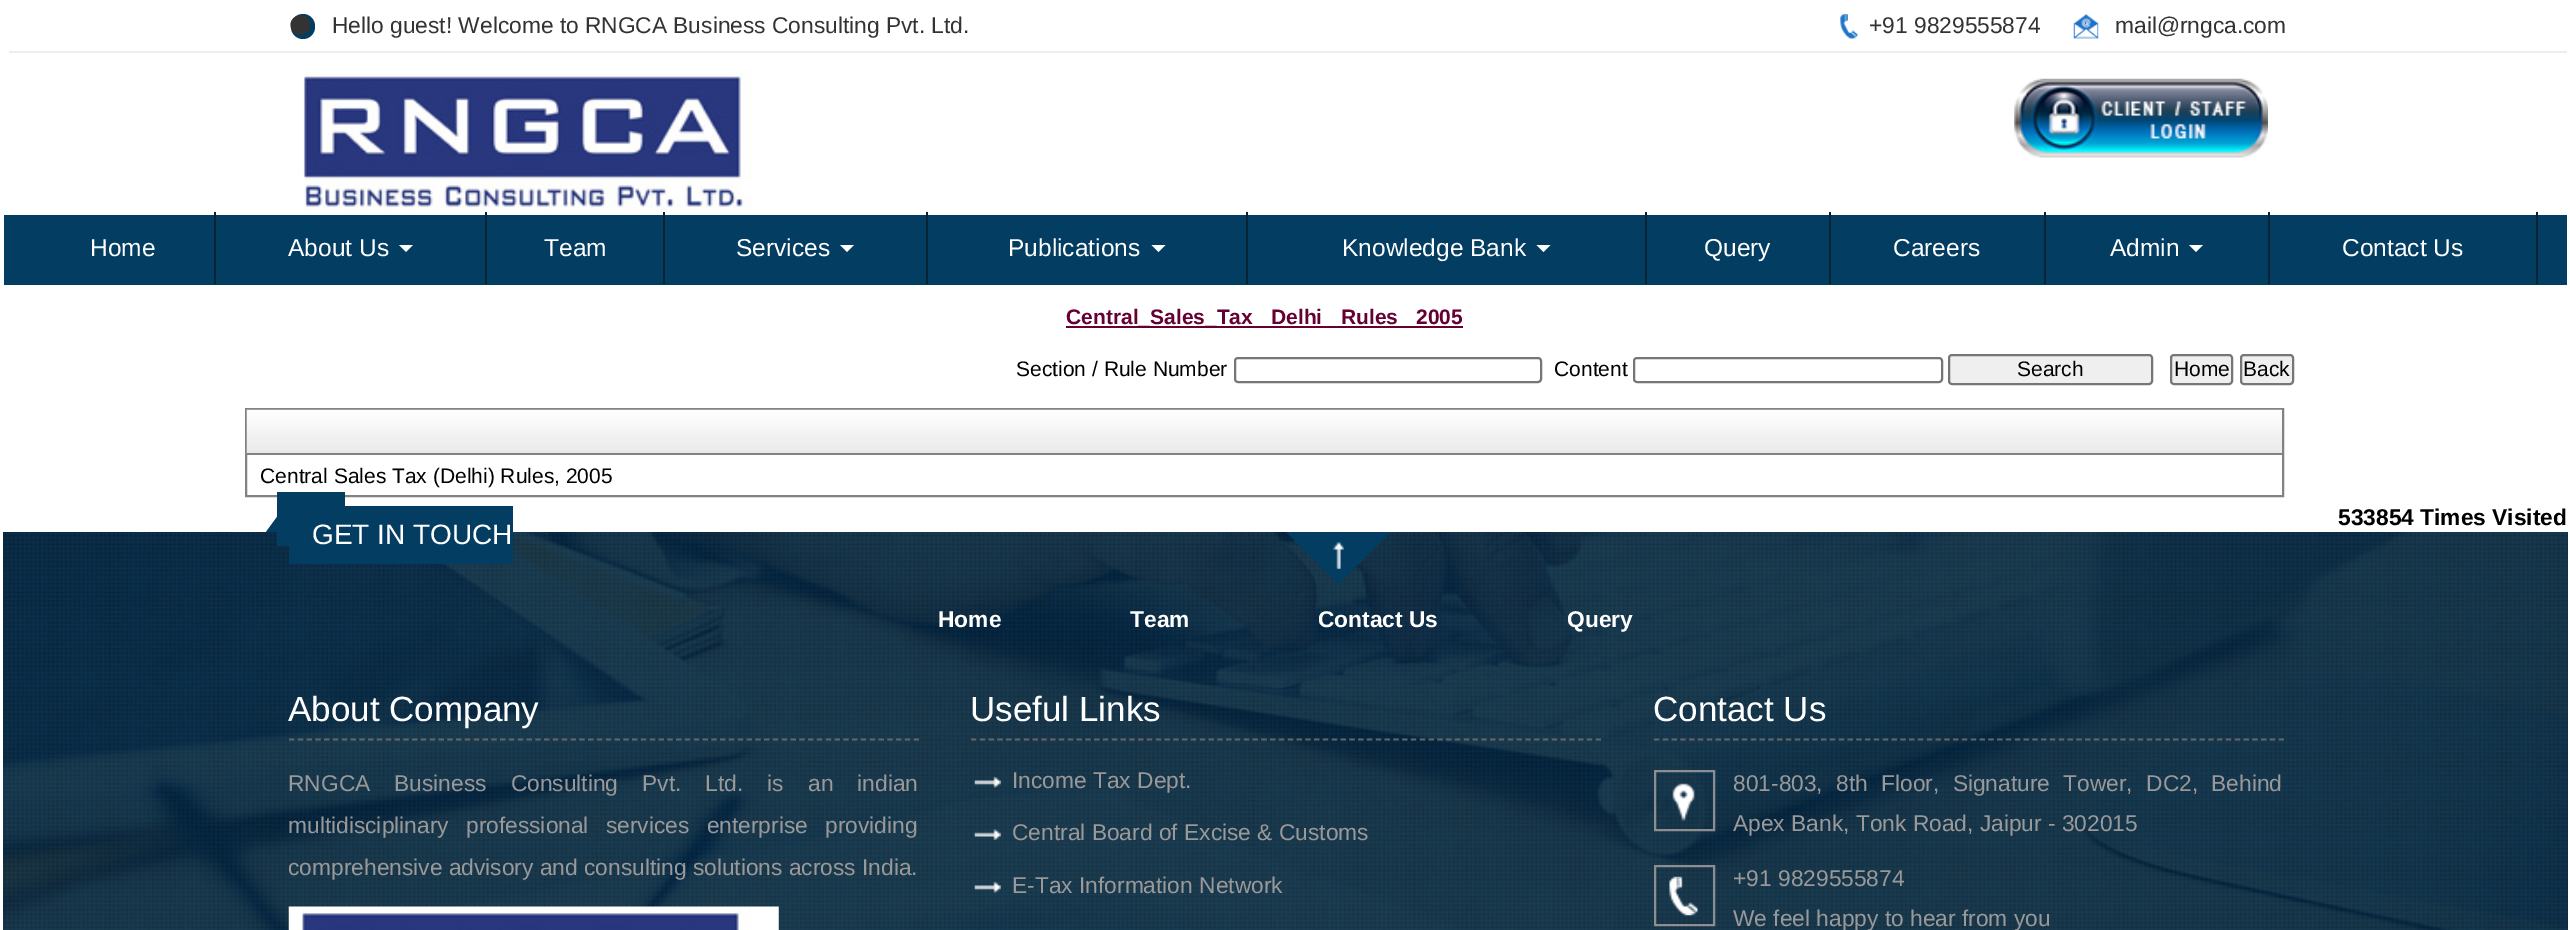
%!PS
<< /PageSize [2570 930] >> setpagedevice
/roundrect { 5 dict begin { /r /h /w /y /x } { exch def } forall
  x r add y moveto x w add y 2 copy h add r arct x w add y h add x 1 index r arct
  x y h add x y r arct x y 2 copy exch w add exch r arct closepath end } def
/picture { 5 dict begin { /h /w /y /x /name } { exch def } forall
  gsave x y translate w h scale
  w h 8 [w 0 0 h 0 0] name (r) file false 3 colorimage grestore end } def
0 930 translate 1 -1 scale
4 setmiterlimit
1 setgray
0 0 2570 930 rectfill
0.933 setgray
9 51 2558 2 rectfill
0.012 0.239 0.384 setrgbcolor
291 14 24 25 12 roundrect fill
0.2 setgray
newpath 308.5 20 moveto 315 31.5 298.5 41 292 30 curveto 285.5 19 302 9 308.5 20 curveto closepath fill
/LiberationSans-Regular [22.75 0 0 -22.75 0 0] selectfont
332 33 moveto (Hello guest! Welcome to RNGCA Business Consulting Pvt. Ltd.) show
(img1.rgb) 1840 14 18 25 picture
1869 33 moveto (+91 9829555874) show
(img2.rgb) 2073 14 26 25 picture
2115 33 moveto (mail@rngca.com) show
(img3.rgb) 303 70 449 141 picture
(img4.rgb) 2014 78 254 80 picture
0.012 0.239 0.384 setrgbcolor
4 215 2563 70 rectfill
0.027 0.141 0.212 setrgbcolor
214 212 2 72 rectfill
/LiberationSans-Regular [24.5 0 0 -24.5 0 0] selectfont
1 setgray
90 256 moveto (Home) show
0.027 0.141 0.212 setrgbcolor
485 212 2 72 rectfill
1 setgray
288 256 moveto (About Us) show
newpath 399 245 moveto 413 245 lineto 406 252 lineto closepath fill
0.027 0.141 0.212 setrgbcolor
663 212 2 72 rectfill
1 setgray
544 256 moveto (Team) show
0.027 0.141 0.212 setrgbcolor
926 212 2 72 rectfill
1 setgray
736 256 moveto (Services) show
newpath 840 245 moveto 854 245 lineto 847 252 lineto closepath fill
0.027 0.141 0.212 setrgbcolor
1246 212 2 72 rectfill
1 setgray
1008 256 moveto (Publications) show
newpath 1151.5 245 moveto 1165.5 245 lineto 1158.5 252 lineto closepath fill
0.027 0.141 0.212 setrgbcolor
1645 212 2 72 rectfill
1 setgray
1342 256 moveto (Knowledge Bank) show
newpath 1536.5 245 moveto 1550.5 245 lineto 1543.5 252 lineto closepath fill
0.027 0.141 0.212 setrgbcolor
1829 212 2 72 rectfill
1 setgray
1704 256 moveto (Query) show
0.027 0.141 0.212 setrgbcolor
2044 212 2 72 rectfill
1 setgray
1893 256 moveto (Careers) show
0.027 0.141 0.212 setrgbcolor
2268 212 2 72 rectfill
1 setgray
2110 256 moveto (Admin) show
newpath 2189 245 moveto 2203 245 lineto 2196 252 lineto closepath fill
0.027 0.141 0.212 setrgbcolor
2536 212 2 72 rectfill
1 setgray
2342 256 moveto (Contact Us) show
0.4 0 0.2 setrgbcolor
1066 326 397 2 rectfill
/LiberationSans-Bold [21 0 0 -21 0 0] selectfont
1066 324 moveto (Central_Sales_Tax) show
1271 324 moveto (Delhi) show
1341 324 moveto (Rules) show
1416 324 moveto (2005) show
/LiberationSans-Regular [21 0 0 -21 0 0] selectfont
0 setgray
1016 376 moveto (Section / Rule Number) show
0.463 setgray
2 setlinewidth
1235 358 306 24 3 roundrect stroke
0 setgray
1554 376 moveto (Content) show
0.463 setgray
1634 358 308 24 3 roundrect stroke
0.937 setgray
1949 355 203 29 3 roundrect gsave fill grestore
0.463 setgray
stroke
0 setgray
2017 376 moveto (Search) show
0.937 setgray
2171 355 61 29 3 roundrect gsave fill grestore
0.463 setgray
stroke
0 setgray
2174 376 moveto (Home) show
0.937 setgray
2241 355 52 29 3 roundrect gsave fill grestore
0.463 setgray
stroke
0 setgray
2243 376 moveto (Back) show
0.51 setgray
246 409 2037 87 rectstroke
(img5.rgb) 246 409 2036 45 picture
247 453 2035 2 rectfill
0 setgray
260 483 moveto (Central Sales Tax \(Delhi\) Rules, 2005) show
/LiberationSans-Bold [22.75 0 0 -22.75 0 0] selectfont
2338 525 moveto (533854 Times Visited) show
(img6.rgb) 3 532 2565 398 picture
0.012 0.239 0.384 setrgbcolor
289 506 224 58 rectfill
277 492 68 54 rectfill
/LiberationSans-Regular [28 0 0 -28 0 0] selectfont
1 setgray
312 544 moveto (GET IN TOUCH) show
0.012 0.239 0.384 setrgbcolor
newpath 285 506 moveto 329 506 lineto 310 532 lineto 266 532 lineto closepath fill
newpath 1286 532 moveto 1391 532 lineto 1339 584 lineto closepath fill
(img7.rgb) 1333 542 11 27 picture
/LiberationSans-Bold [22.75 0 0 -22.75 0 0] selectfont
1 setgray
938 627 moveto (Home) show
1130 627 moveto (Team) show
1318 627 moveto (Contact Us) show
1567 627 moveto (Query) show
0.4 setgray
1.8 setlinewidth
[5.25 3.55] 0 setdash
newpath 289 739.5 moveto 919 739.5 lineto stroke
/LiberationSans-Regular [35 0 0 -35 0 0] selectfont
1 setgray
288 721 moveto (About Company) show
/LiberationSans-Regular [22.75 0 0 -22.75 0 0] selectfont
0.6 setgray
288 791 moveto 17.75 0 32 (RNGCA Business Consulting Pvt. Ltd. is an indian) widthshow
288 833 moveto 11 0 32 (multidisciplinary professional services enterprise providing) widthshow
288 875 moveto (comprehensive advisory and consulting solutions across India.) show
(img8.rgb) 288 906 491 24 picture
0.4 setgray
newpath 971 739.5 moveto 1601 739.5 lineto stroke
/LiberationSans-Regular [35 0 0 -35 0 0] selectfont
1 setgray
970 721 moveto (Useful Links) show
(img9.rgb) 974 777 27 11 picture
/LiberationSans-Regular [22.75 0 0 -22.75 0 0] selectfont
0.6 setgray
1012 788 moveto (Income Tax Dept.) show
(img10.rgb) 974 829 27 11 picture
1012 840 moveto (Central Board of Excise & Customs) show
(img11.rgb) 974 882 27 11 picture
1012 893 moveto (E-Tax Information Network) show
0.4 setgray
newpath 1654 739.5 moveto 2284 739.5 lineto stroke
/LiberationSans-Regular [35 0 0 -35 0 0] selectfont
1 setgray
1653 721 moveto (Contact Us) show
0.557 setgray
2 setlinewidth
[] 0 setdash
1655 771 59 59 rectstroke
(img12.rgb) 1672 783 23 38 picture
/LiberationSans-Regular [22.75 0 0 -22.75 0 0] selectfont
0.6 setgray
1733 791 moveto 7 0 32 (801-803, 8th Floor, Signature Tower, DC2, Behind) widthshow
1733 831 moveto (Apex Bank, Tonk Road, Jaipur - 302015) show
0.557 setgray
1655 866 59 59 rectstroke
(img13.rgb) 1669 876 29 40 picture
0.6 setgray
1733 886 moveto (+91 9829555874) show
1733 926 moveto (We feel happy to hear from you) show
showpage
